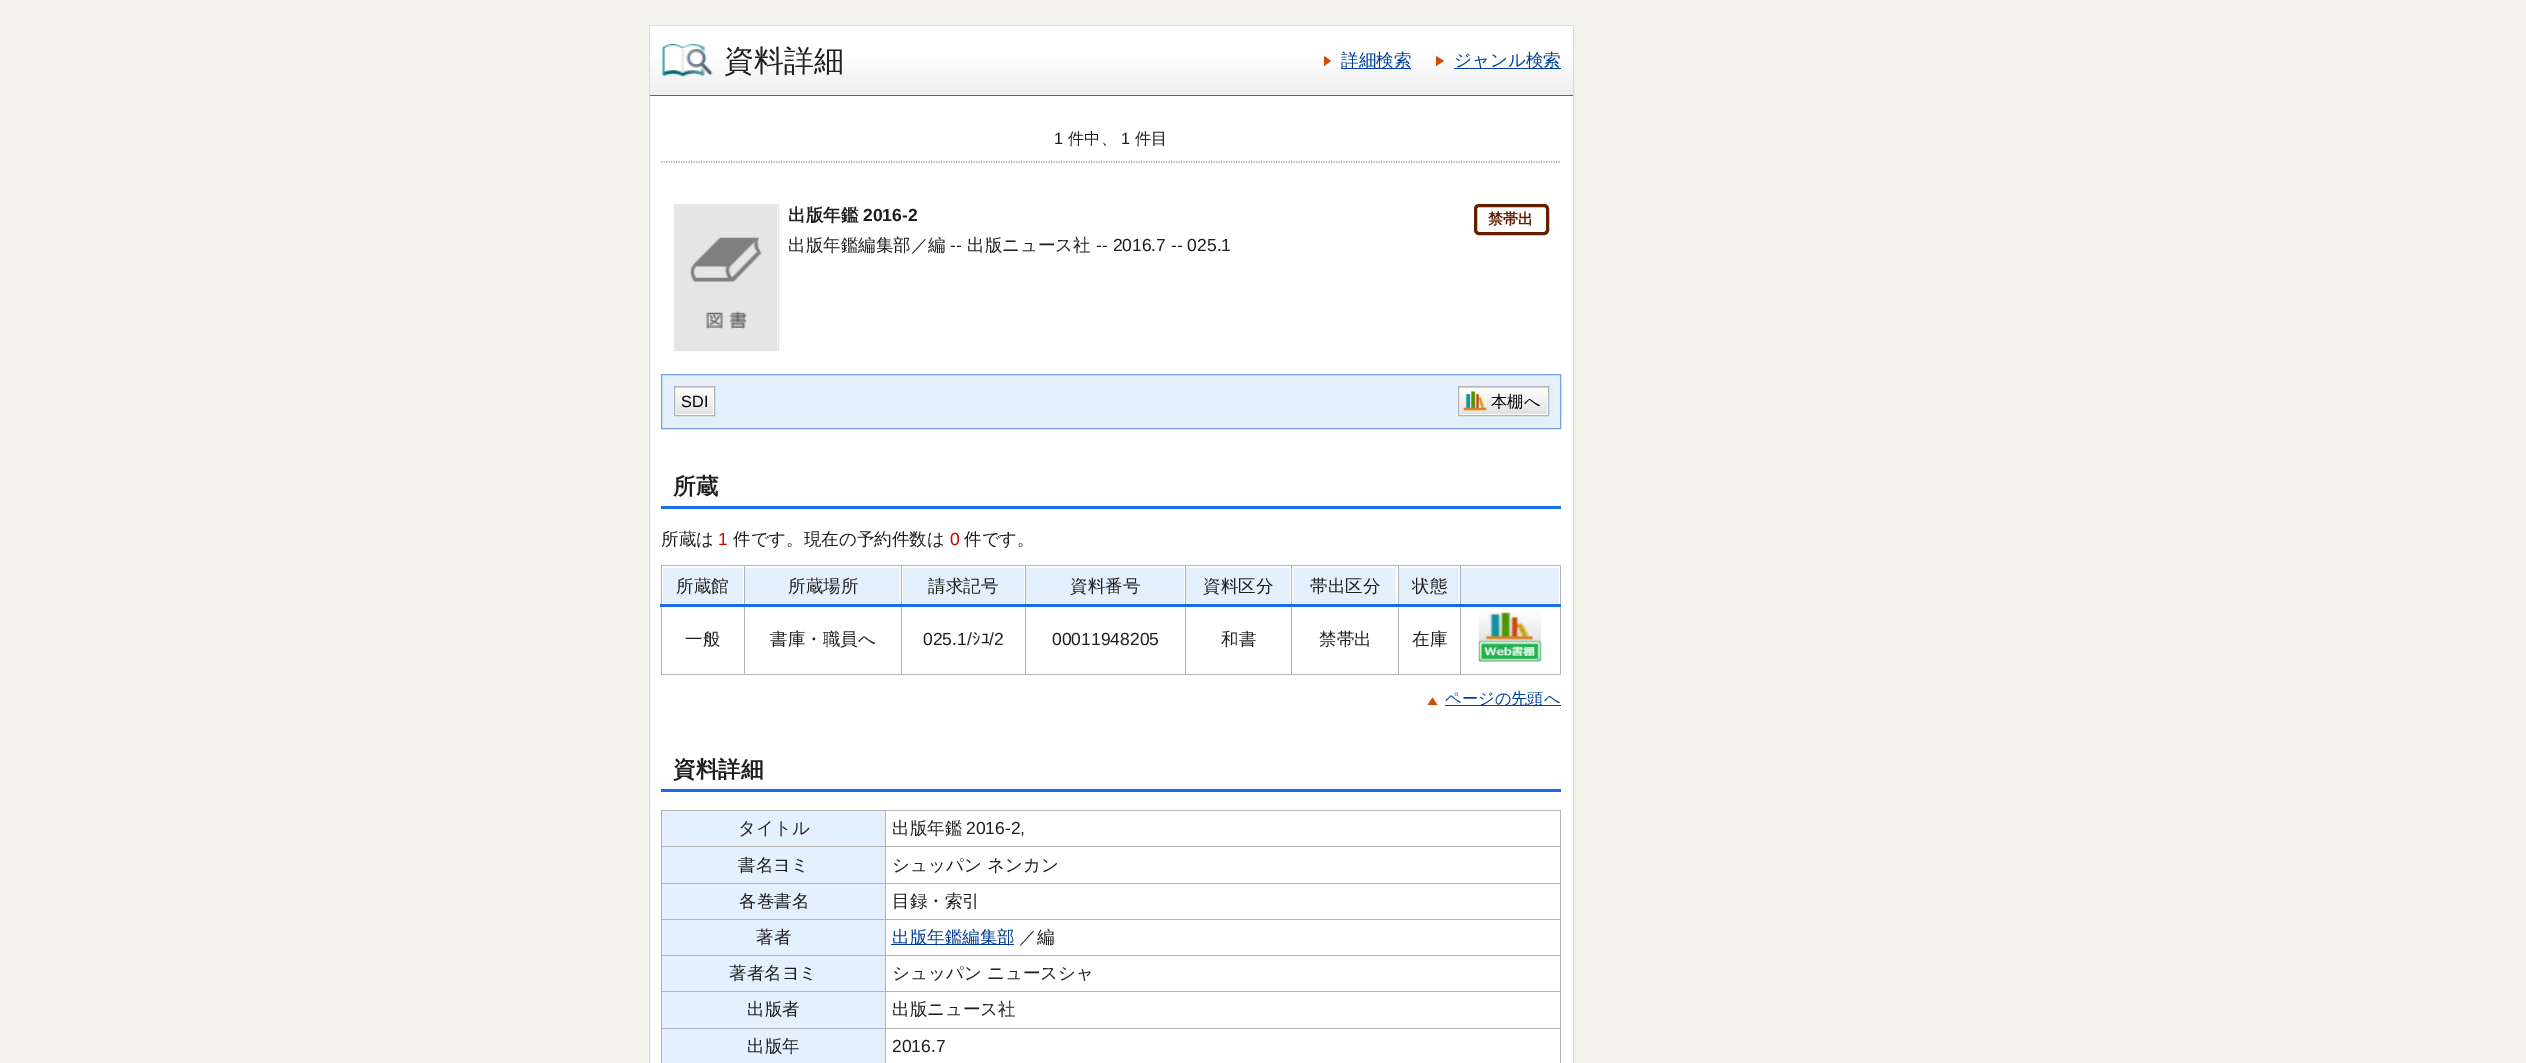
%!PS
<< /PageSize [2526 1063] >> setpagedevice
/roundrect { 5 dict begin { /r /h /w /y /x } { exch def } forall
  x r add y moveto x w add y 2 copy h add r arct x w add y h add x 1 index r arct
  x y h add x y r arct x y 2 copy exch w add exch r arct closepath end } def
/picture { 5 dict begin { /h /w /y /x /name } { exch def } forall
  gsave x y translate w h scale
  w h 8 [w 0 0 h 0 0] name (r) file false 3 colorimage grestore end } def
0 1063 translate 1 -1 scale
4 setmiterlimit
0.961 0.957 0.929 setrgbcolor
0 0 2526 1063 rectfill
1 setgray
650 96 923 967 rectfill
0.859 0.855 0.796 setrgbcolor
649.5 25.5 924 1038 rectstroke
gsave newpath 650 26 moveto 1573 26 lineto 1573 95 lineto 650 95 lineto closepath clip newpath
<< /ShadingType 2 /ColorSpace /DeviceRGB /Coords [1111 95 1111 26] /Extend [true true] /Function << /FunctionType 3 /Domain [0 1] /Functions [<< /FunctionType 2 /Domain [0 1] /C0 [0.937 0.937 0.937] /C1 [1 1 1] /N 1 >> << /FunctionType 2 /Domain [0 1] /C0 [1 1 1] /C1 [1 1 1] /N 1 >>] /Bounds [0.62] /Encode [0 1 0 1] >> >> shfill grestore
0.102 0.427 0.902 setrgbcolor
650 95 923 1 rectfill
(img1.rgb) 662 44 51 33 picture
/WenQuanYiZenHei-Medium [30 0 0 -30 0 0] selectfont
0.122 setgray
724 71 moveto (資料詳細) show
0.8 0.306 0 setrgbcolor
newpath 1324 66 moveto 1324 56 lineto 1331 61 lineto closepath fill
0 0.239 0.6 setrgbcolor
1341 68 70 1 rectfill
/WenQuanYiZenHei-Medium [17.5 0 0 -17.5 0 0] selectfont
1341 66 moveto (詳細検索) show
0.8 0.306 0 setrgbcolor
newpath 1436 66 moveto 1436 56 lineto 1444 61 lineto closepath fill
0 0.239 0.6 setrgbcolor
1454 68 107 1 rectfill
1454 66 moveto (ジャンル検索) show
0.608 setgray
1.2 setlinewidth
[1.25 1.25] 0 setdash
newpath 661 162 moveto 1561 162 lineto stroke
/LiberationSans-Regular [16.25 0 0 -16.25 0 0] selectfont
0.122 setgray
1054 144 moveto (1) show
/WenQuanYiZenHei-Medium [16.25 0 0 -16.25 0 0] selectfont
1068 144 moveto (件中、) show
/LiberationSans-Regular [16.25 0 0 -16.25 0 0] selectfont
1121 144 moveto (1) show
/WenQuanYiZenHei-Medium [16.25 0 0 -16.25 0 0] selectfont
1135 144 moveto (件目) show
0.898 setgray
1 setlinewidth
[] 0 setdash
674.5 204.5 104 146 rectstroke
(img2.rgb) 675 205 103 145 picture
/WenQuanYiZenHei-Bold [17.5 0 0 -17.5 0 0] selectfont
0.122 setgray
788 221 moveto (出版年鑑) show
/LiberationSans-Bold [17.5 0 0 -17.5 0 0] selectfont
863 221 moveto (2016-2) show
0.392 0.114 0.004 setrgbcolor
3 setlinewidth
1475.5 205.5 72 28 3.5 roundrect stroke
/WenQuanYiZenHei-Bold [15 0 0 -15 0 0] selectfont
1488 224 moveto (禁帯出) show
/WenQuanYiZenHei-Medium [17.5 0 0 -17.5 0 0] selectfont
0.122 setgray
788 251 moveto (出版年鑑編集部／編) show
/LiberationSans-Regular [17.5 0 0 -17.5 0 0] selectfont
950 251 moveto (--) show
/WenQuanYiZenHei-Medium [17.5 0 0 -17.5 0 0] selectfont
967 251 moveto (出版ニュース社) show
/LiberationSans-Regular [17.5 0 0 -17.5 0 0] selectfont
1096 251 moveto (-- 2016.7 -- 025.1) show
0.898 0.941 1 setrgbcolor
newpath 661.5 374.5 moveto 1560.5 374.5 lineto 1560.5 428.5 lineto 661.5 428.5 lineto closepath gsave fill grestore
0.451 0.631 0.898 setrgbcolor
1 setlinewidth
stroke
gsave newpath 674 387 moveto 715 387 lineto 715 388 lineto 674 388 lineto closepath clip newpath
<< /ShadingType 2 /ColorSpace /DeviceRGB /Coords [694 388 694 360] /Extend [true true] /Function << /FunctionType 2 /Domain [0 1] /C0 [0.878 0.878 0.878] /C1 [1 1 1] /N 1 >> >> shfill grestore
gsave newpath 676 389 moveto 713 389 lineto 713 414 lineto 676 414 lineto closepath clip newpath
<< /ShadingType 2 /ColorSpace /DeviceRGB /Coords [694 415 694 388] /Extend [true true] /Function << /FunctionType 2 /Domain [0 1] /C0 [0.878 0.878 0.878] /C1 [1 1 1] /N 1 >> >> shfill grestore
0.984 setgray
675.5 388.5 38 26 rectstroke
0.702 setgray
674.5 386.5 40 29 rectstroke
/LiberationSans-Regular [16.25 0 0 -16.25 0 0] selectfont
0 setgray
681 407 moveto (SDI) show
gsave newpath 1458 387 moveto 1549 387 lineto 1549 388 lineto 1458 388 lineto closepath clip newpath
<< /ShadingType 2 /ColorSpace /DeviceRGB /Coords [1503 388 1503 360] /Extend [true true] /Function << /FunctionType 2 /Domain [0 1] /C0 [0.878 0.878 0.878] /C1 [1 1 1] /N 1 >> >> shfill grestore
gsave newpath 1460 389 moveto 1547 389 lineto 1547 414 lineto 1460 414 lineto closepath clip newpath
<< /ShadingType 2 /ColorSpace /DeviceRGB /Coords [1503 415 1503 388] /Extend [true true] /Function << /FunctionType 2 /Domain [0 1] /C0 [0.878 0.878 0.878] /C1 [1 1 1] /N 1 >> >> shfill grestore
0.984 setgray
1459.5 388.5 88 26 rectstroke
0.702 setgray
1458.5 386.5 90 29 rectstroke
(img3.rgb) 1463 391 24 20 picture
/WenQuanYiZenHei-Medium [16.25 0 0 -16.25 0 0] selectfont
0 setgray
1491 407 moveto (本棚へ) show
0.102 0.427 0.902 setrgbcolor
661 506 900 3 rectfill
/WenQuanYiZenHei-Bold [22.5 0 0 -22.5 0 0] selectfont
0.122 setgray
673 494 moveto (所蔵) show
/WenQuanYiZenHei-Medium [17.5 0 0 -17.5 0 0] selectfont
661 545 moveto (所蔵は) show
/LiberationSans-Regular [17.5 0 0 -17.5 0 0] selectfont
0.8 0.004 0 setrgbcolor
718 545 moveto (1) show
/WenQuanYiZenHei-Medium [17.5 0 0 -17.5 0 0] selectfont
0.122 setgray
733 545 moveto (件です。現在の予約件数は) show
/LiberationSans-Regular [17.5 0 0 -17.5 0 0] selectfont
0.8 0.004 0 setrgbcolor
950 545 moveto (0) show
/WenQuanYiZenHei-Medium [17.5 0 0 -17.5 0 0] selectfont
0.122 setgray
964 545 moveto (件です。) show
0.702 setgray
661 565 900 1 rectfill
1560 565 1 110 rectfill
661 674 900 1 rectfill
661 565 1 110 rectfill
0.898 0.941 1 setrgbcolor
1461 568 98 35 rectfill
0.702 setgray
744 565 1 110 rectfill
901 565 1 110 rectfill
1025 565 1 110 rectfill
1185 565 1 110 rectfill
1291 565 1 110 rectfill
1398 565 1 110 rectfill
1460 565 1 110 rectfill
0.102 0.427 0.902 setrgbcolor
660 604 901 3 rectfill
0.898 0.941 1 setrgbcolor
663 568 80 35 rectfill
0.122 setgray
676 592 moveto (所蔵館) show
0.898 0.941 1 setrgbcolor
745 568 155 35 rectfill
0.122 setgray
788 592 moveto (所蔵場所) show
0.898 0.941 1 setrgbcolor
903 568 121 35 rectfill
0.122 setgray
928 592 moveto (請求記号) show
0.898 0.941 1 setrgbcolor
1026 568 158 35 rectfill
0.122 setgray
1070 592 moveto (資料番号) show
0.898 0.941 1 setrgbcolor
1186 568 104 35 rectfill
0.122 setgray
1203 592 moveto (資料区分) show
0.898 0.941 1 setrgbcolor
1293 568 103 35 rectfill
0.122 setgray
1310 592 moveto (帯出区分) show
0.898 0.941 1 setrgbcolor
1399 568 60 35 rectfill
0.122 setgray
1412 592 moveto (状態) show
685 645 moveto (一般) show
770 645 moveto (書庫・職員へ) show
/LiberationSans-Regular [17.5 0 0 -17.5 0 0] selectfont
923 645 moveto (025.1/) show
/IPAPGothic-Regular [17.5 0 0 -17.5 0 0] selectfont
972 645 moveto (ｼﾕ) show
/LiberationSans-Regular [17.5 0 0 -17.5 0 0] selectfont
989 645 moveto (/2) show
1052 645 moveto (00011948205) show
/WenQuanYiZenHei-Medium [17.5 0 0 -17.5 0 0] selectfont
1221 645 moveto (和書) show
1319 645 moveto (禁帯出) show
1412 645 moveto (在庫) show
(img4.rgb) 1478 612 64 50 picture
0.8 0.306 0 setrgbcolor
newpath 1437.5 705 moveto 1427.5 705 lineto 1432.5 697.5 lineto closepath fill
0 0.239 0.6 setrgbcolor
1445 705 116 1 rectfill
/WenQuanYiZenHei-Medium [16.25 0 0 -16.25 0 0] selectfont
1445 704 moveto (ページの先頭へ) show
0.102 0.427 0.902 setrgbcolor
661 789 900 3 rectfill
/WenQuanYiZenHei-Bold [22.5 0 0 -22.5 0 0] selectfont
0.122 setgray
673 777 moveto (資料詳細) show
0.702 setgray
661 810 900 1 rectfill
1560 810 1 253 rectfill
661 810 1 253 rectfill
0.898 0.941 1 setrgbcolor
662 811 223 72 rectfill
/WenQuanYiZenHei-Medium [17.5 0 0 -17.5 0 0] selectfont
0.122 setgray
738 834 moveto (タイトル) show
0.702 setgray
885 846 676 1 rectfill
885 883 676 1 rectfill
885 919 676 1 rectfill
885 955 676 1 rectfill
0.898 0.941 1 setrgbcolor
662 956 223 72 rectfill
0.702 setgray
885 991 676 1 rectfill
885 1028 676 1 rectfill
885 1028 1 35 rectfill
661 1028 225 1 rectfill
885 991 1 38 rectfill
661 991 225 1 rectfill
885 955 1 38 rectfill
661 955 225 1 rectfill
885 919 1 37 rectfill
661 919 225 1 rectfill
885 883 1 37 rectfill
661 883 225 1 rectfill
885 846 1 38 rectfill
661 846 225 1 rectfill
885 810 1 38 rectfill
0.122 setgray
892 834 moveto (出版年鑑) show
/LiberationSans-Regular [17.5 0 0 -17.5 0 0] selectfont
966 834 moveto (2016-2,) show
/WenQuanYiZenHei-Medium [17.5 0 0 -17.5 0 0] selectfont
738 871 moveto (書名ヨミ) show
892 871 moveto (シュッパン ネンカン) show
0.898 0.941 1 setrgbcolor
662 884 223 35 rectfill
0.122 setgray
739 907 moveto (各巻書名) show
892 907 moveto (目録・索引) show
0.898 0.941 1 setrgbcolor
662 920 223 35 rectfill
0.122 setgray
756 943 moveto (著者) show
0 0.239 0.6 setrgbcolor
891 944 123 1 rectfill
892 943 moveto (出版年鑑編集部) show
0.122 setgray
1019 943 moveto (／編) show
729 979 moveto (著者名ヨミ) show
892 979 moveto (シュッパン ニュースシャ) show
747 1015 moveto (出版者) show
892 1015 moveto (出版ニュース社) show
0.898 0.941 1 setrgbcolor
662 1029 223 34 rectfill
0.122 setgray
747 1052 moveto (出版年) show
/LiberationSans-Regular [17.5 0 0 -17.5 0 0] selectfont
892 1052 moveto (2016.7) show
showpage
